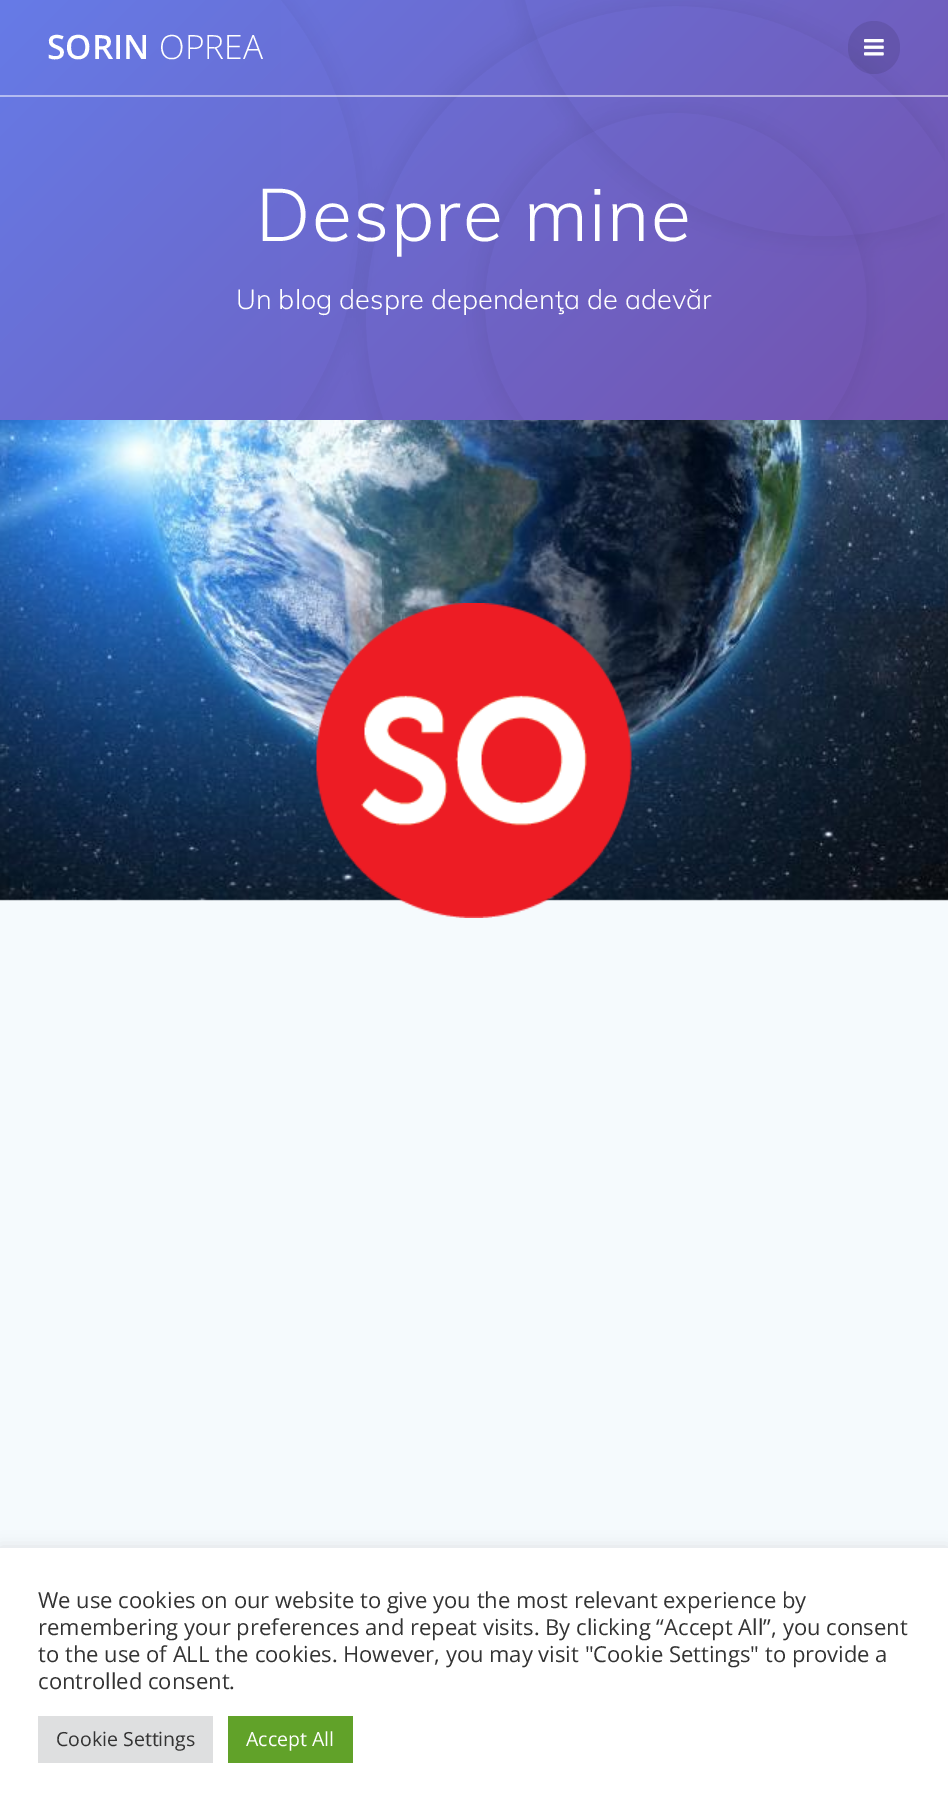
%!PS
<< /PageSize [948 1807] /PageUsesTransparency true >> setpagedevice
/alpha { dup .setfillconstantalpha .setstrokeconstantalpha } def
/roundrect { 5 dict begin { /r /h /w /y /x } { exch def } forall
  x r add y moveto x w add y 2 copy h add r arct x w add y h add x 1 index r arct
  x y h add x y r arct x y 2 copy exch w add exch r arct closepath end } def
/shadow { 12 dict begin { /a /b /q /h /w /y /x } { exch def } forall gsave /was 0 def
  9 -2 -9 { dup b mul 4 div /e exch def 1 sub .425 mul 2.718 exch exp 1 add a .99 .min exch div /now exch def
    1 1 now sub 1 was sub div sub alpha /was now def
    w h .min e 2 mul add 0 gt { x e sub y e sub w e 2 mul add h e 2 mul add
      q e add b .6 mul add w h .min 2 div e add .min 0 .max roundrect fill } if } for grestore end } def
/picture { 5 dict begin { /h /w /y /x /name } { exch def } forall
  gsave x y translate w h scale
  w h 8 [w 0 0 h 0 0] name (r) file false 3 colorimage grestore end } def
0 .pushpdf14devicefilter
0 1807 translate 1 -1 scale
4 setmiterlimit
0.961 0.98 0.992 setrgbcolor
0 0 948 1807 rectfill
(img1.rgb) 0 420 948 481 picture
gsave newpath 0 0 moveto 948 0 lineto 948 420 lineto 0 420 lineto closepath clip newpath
<< /ShadingType 2 /ColorSpace /DeviceRGB /Coords [132 -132 816 552] /Extend [true true] /Function << /FunctionType 2 /Domain [0 1] /C0 [0.4 0.482 0.906] /C1 [0.451 0.322 0.678] /N 1 >> >> shfill grestore
(img3.rgb) 281 0 664 420 picture
0.5 alpha
1 setgray
0 95 948 2 rectfill
/OpenSans-SemiBold [33.5 0 0 -33.5 0 0] selectfont
1 alpha
47 59 moveto (SORIN) show
/OpenSans-Light [33.5 0 0 -33.5 0 0] selectfont
159 59 moveto (OPREA) show
0.1 alpha
0 setgray
848 21 52 53 26 roundrect fill
1 alpha
(img2.rgb) 864 39 20 17 picture
/Muli-Light [73.5 0 0 -73.5 0 0] selectfont
1 setgray
256 241 moveto 1.4 0 (Despre mine) ashow
/Muli-Light [27.25 0 0 -27.25 0 0] selectfont
236 309 moveto (Un blog despre dependenţa de adevăr) show
(img4.rgb) 316 603 316 315 picture
0.675 0.671 0.671 setrgbcolor
0 1547 948 259 0 7.5 0.3 shadow
1 setgray
0 1548 948 259 rectfill
/OpenSans-Regular [22 0 0 -22 0 0] selectfont
0.2 setgray
38 1608 moveto (We use cookies on our website to give you the most relevant experience by) show
38 1635 moveto (remembering your preferences and repeat visits. By clicking “Accept All”, you consent) show
38 1662 moveto (to the use of ALL the cookies. However, you may visit "Cookie Settings" to provide a) show
38 1689 moveto (controlled consent.) show
0.871 0.875 0.878 setrgbcolor
38 1716 175 47 rectfill
/OpenSans-Regular [19.5 0 0 -19.5 0 0] selectfont
0.2 setgray
56 1746 moveto (Cookie Settings) show
0.38 0.635 0.161 setrgbcolor
228 1716 125 47 rectfill
1 setgray
246 1746 moveto (Accept All) show
.poppdf14devicefilter showpage
